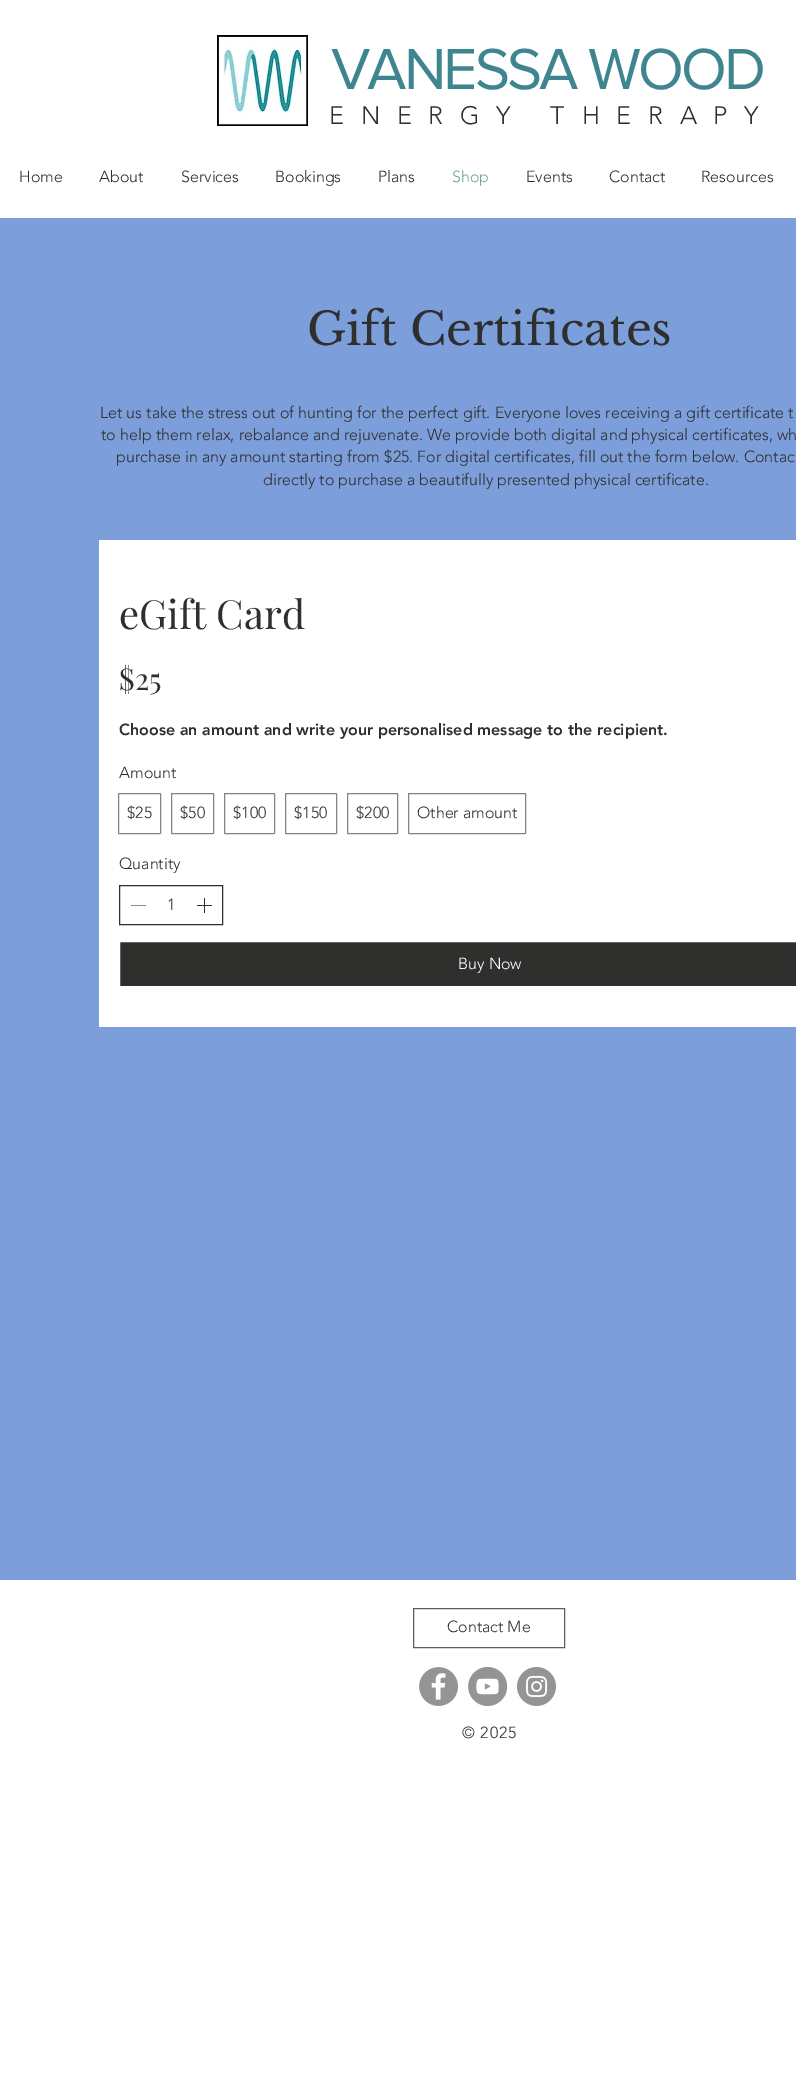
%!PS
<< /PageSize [796 2079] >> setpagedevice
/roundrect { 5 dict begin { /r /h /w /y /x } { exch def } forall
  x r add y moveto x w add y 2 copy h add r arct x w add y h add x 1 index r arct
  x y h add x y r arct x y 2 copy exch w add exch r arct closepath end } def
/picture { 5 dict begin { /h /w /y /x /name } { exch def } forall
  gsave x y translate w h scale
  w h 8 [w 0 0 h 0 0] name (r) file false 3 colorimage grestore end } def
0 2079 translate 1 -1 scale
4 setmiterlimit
1 setgray
0 0 796 2079 rectfill
(img1.rgb) 217 35 91 91 picture
/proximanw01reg-Regular [60 0 0 -60 0 0] selectfont
0.247 0.522 0.561 setrgbcolor
331 89 moveto -3 0 (VANESSA WOOD) ashow
/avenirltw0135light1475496-Light [25 0 0 -25 0 0] selectfont
0.184 0.184 0.18 setrgbcolor
329 124 moveto 16.75 0 (ENERGY THERAPY) ashow
/avenirltw0135light1475496-Light [16 0 0 -16 0 0] selectfont
19 182 moveto (Home) show
99 182 moveto (About) show
181 182 moveto (Services) show
275 182 moveto (Bookings) show
378 182 moveto (Plans) show
0.443 0.639 0.604 setrgbcolor
452 182 moveto (Shop) show
0.184 0.184 0.18 setrgbcolor
526 182 moveto (Events) show
609 182 moveto (Contact) show
701 182 moveto (Resources) show
0.486 0.62 0.859 setrgbcolor
0 218 796 1362 rectfill
/LibreBaskerville-Regular [45 0 0 -45 0 0] selectfont
0.184 0.184 0.18 setrgbcolor
307 345 moveto (Gift Certificates) show
/avenirltw0135light1475496-Light [16 0 0 -16 0 0] selectfont
100 418 moveto (Let us take the stress out of hunting for the perfect gift. Everyone loves receiving a gift certificate t) show
101 440 moveto (to help them relax, rebalance and rejuvenate. We provide both digital and physical certificates, wh) show
116 462 moveto (purchase in any amount starting from $25. For digital certificates, fill out the form below. Contac) show
263 485 moveto (directly to purchase a beautifully presented physical certificate.) show
1 setgray
99 540 697 487 rectfill
/PlayfairDisplay-Regular [40 0 0 -40 0 0] selectfont
0.184 0.184 0.18 setrgbcolor
119 629 moveto (eGift Card) show
/PlayfairDisplay-Regular [30 0 0 -30 0 0] selectfont
119 690 moveto ($25) show
/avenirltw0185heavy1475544-Black [16 0 0 -16 0 0] selectfont
119 735 moveto (Choose an amount and write your personalised message to the recipient.) show
/avenirltw0135light1475496-Light [16 0 0 -16 0 0] selectfont
119 778 moveto (Amount) show
0.51 setgray
118.5 793.5 42 40 0.5 roundrect stroke
0.184 0.184 0.18 setrgbcolor
127 818 moveto ($25) show
0.51 setgray
171.5 793.5 42 40 0.5 roundrect stroke
0.184 0.184 0.18 setrgbcolor
180 818 moveto ($50) show
0.51 setgray
224.5 793.5 50 40 0.5 roundrect stroke
0.184 0.184 0.18 setrgbcolor
233 818 moveto ($100) show
0.51 setgray
285.5 793.5 51 40 0.5 roundrect stroke
0.184 0.184 0.18 setrgbcolor
294 818 moveto ($150) show
0.51 setgray
347.5 793.5 50 40 0.5 roundrect stroke
0.184 0.184 0.18 setrgbcolor
356 818 moveto ($200) show
0.51 setgray
408.5 793.5 117 40 0.5 roundrect stroke
0.184 0.184 0.18 setrgbcolor
417 818 moveto (Other amount) show
119 869 moveto (Quantity) show
119.5 885.5 103 39 rectstroke
0.549 0.549 0.545 setrgbcolor
131 905 15 1 rectfill
0.184 0.184 0.18 setrgbcolor
167 910 moveto (1) show
(img2.rgb) 197 898 15 15 picture
119.5 941.5 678 45 0.5 roundrect gsave fill grestore
1 setgray
stroke
458 969 moveto (Buy Now) show
0.369 0.369 0.365 setrgbcolor
413.5 1608.5 151 39 rectstroke
0.184 0.184 0.18 setrgbcolor
447 1632 moveto (Contact Me) show
(img3.rgb) 419 1667 39 39 picture
(img4.rgb) 468 1667 39 39 picture
(img5.rgb) 517 1667 39 39 picture
462 1738 moveto 0.75 0 (© 2025) ashow
showpage
